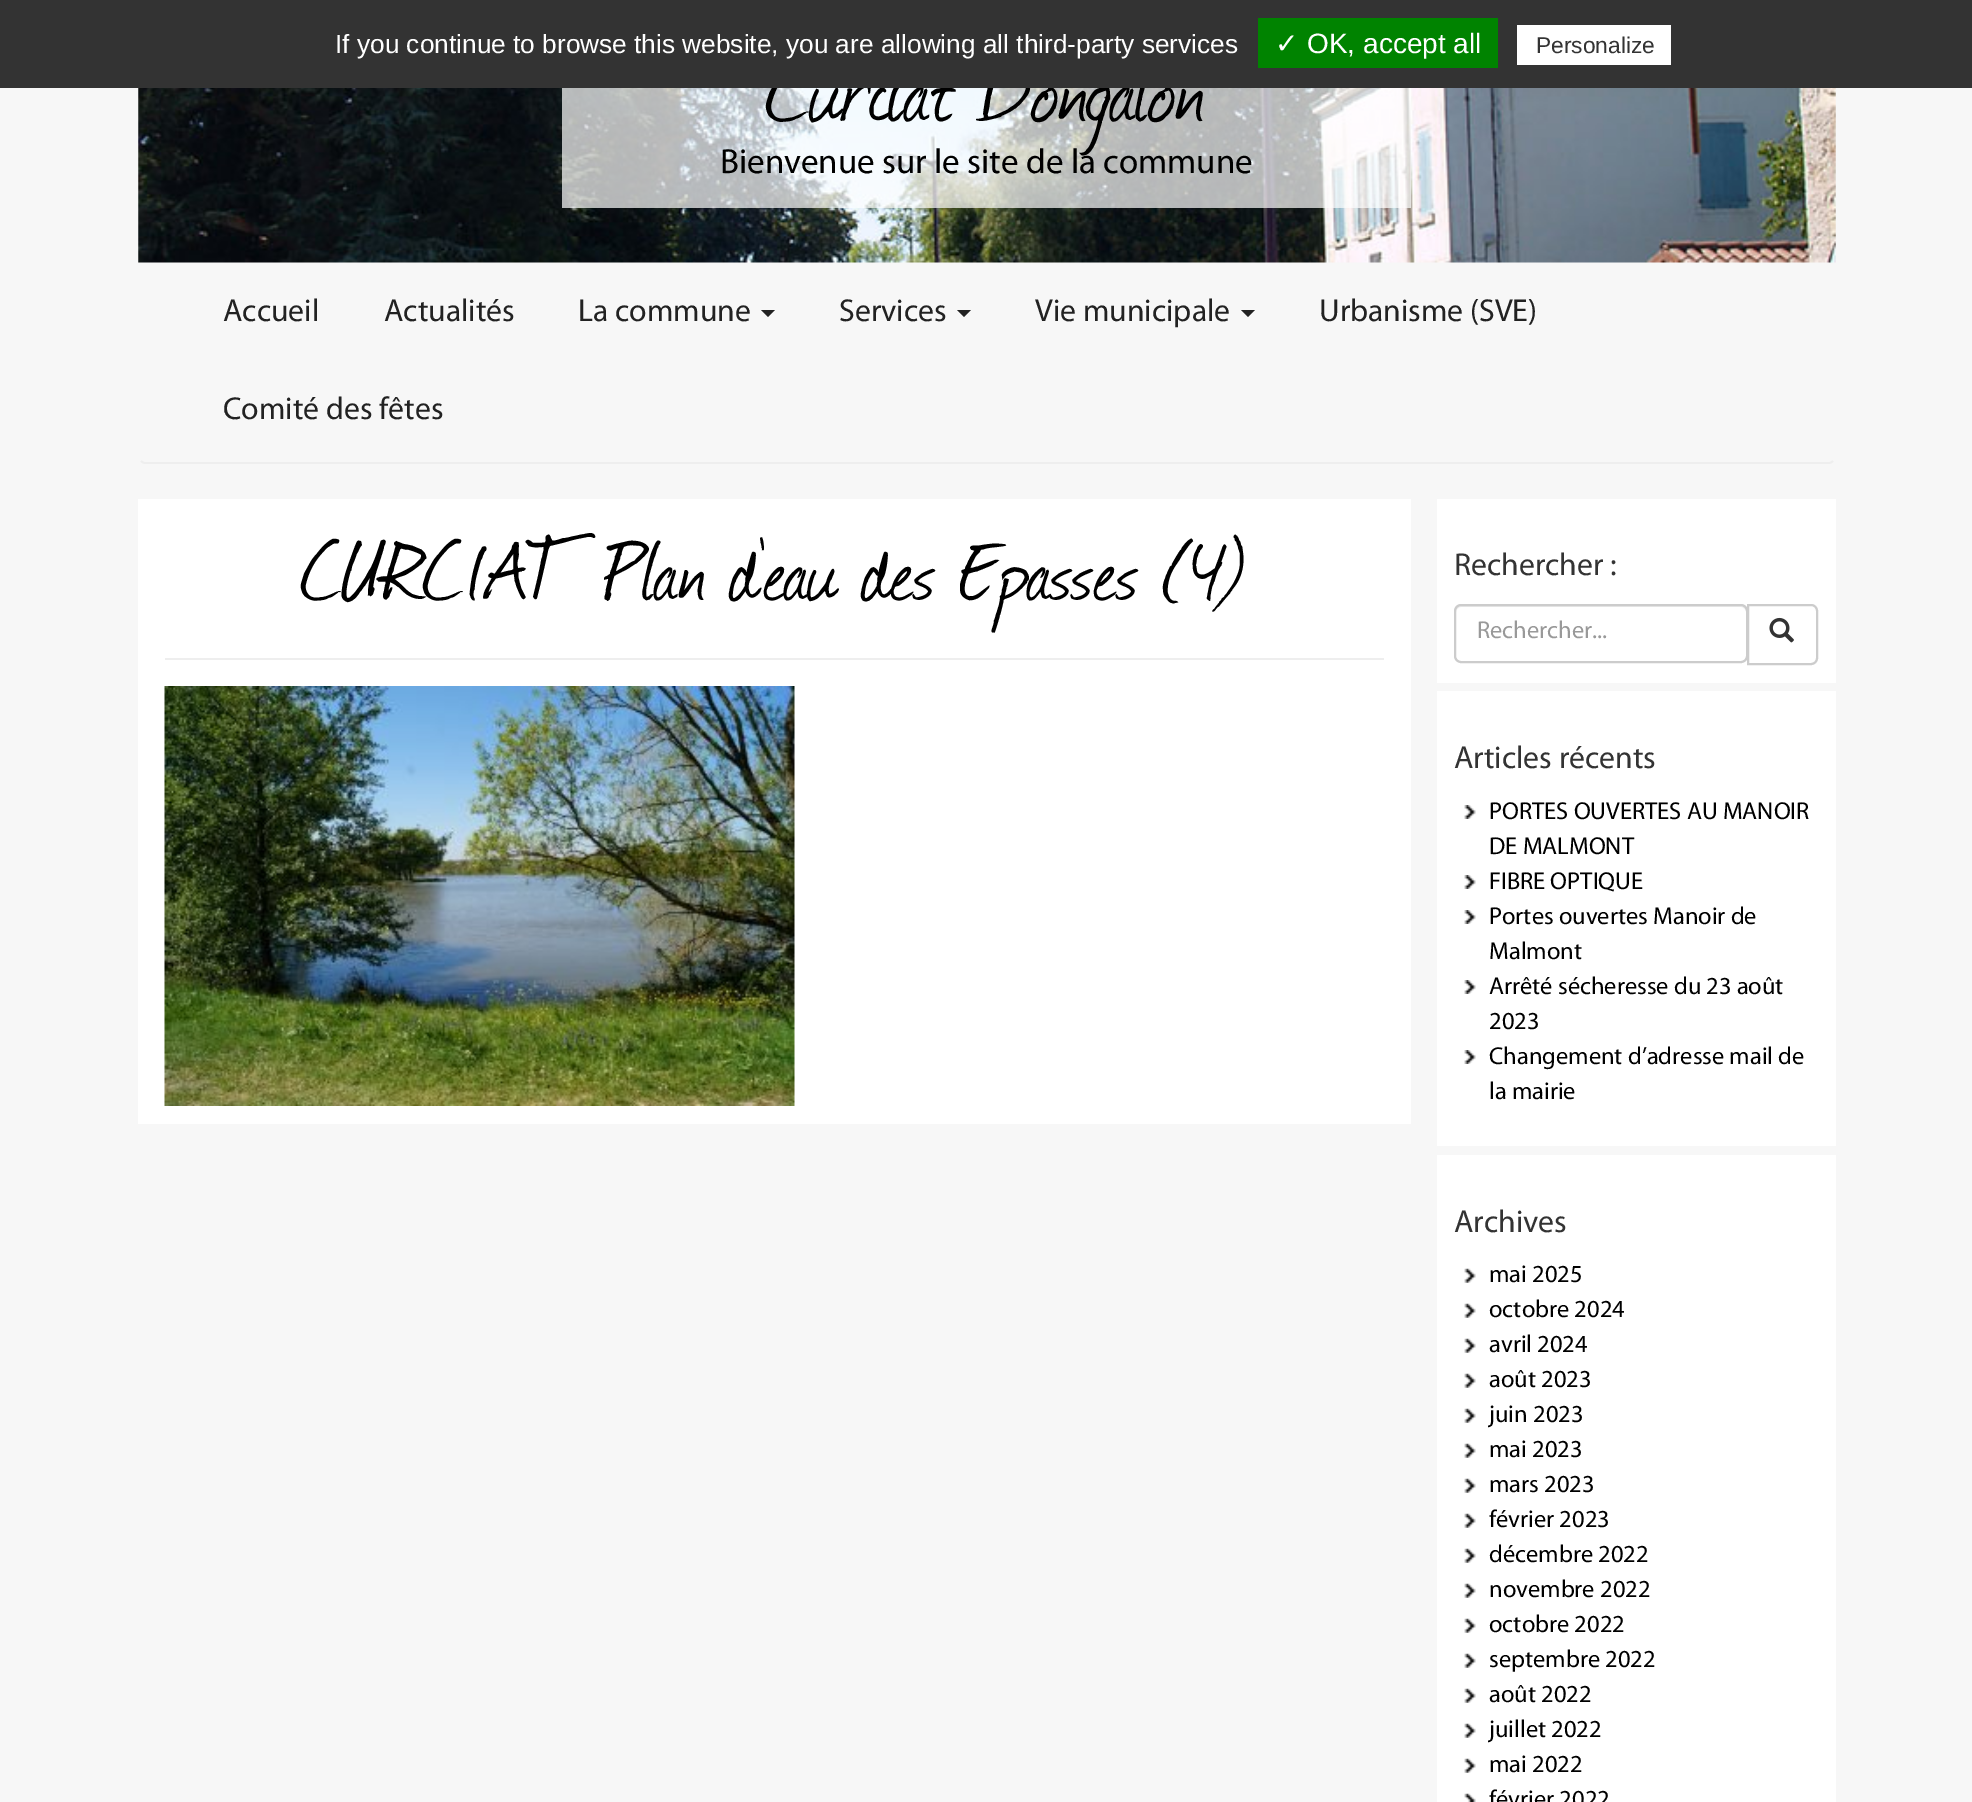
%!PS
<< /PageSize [1972 1802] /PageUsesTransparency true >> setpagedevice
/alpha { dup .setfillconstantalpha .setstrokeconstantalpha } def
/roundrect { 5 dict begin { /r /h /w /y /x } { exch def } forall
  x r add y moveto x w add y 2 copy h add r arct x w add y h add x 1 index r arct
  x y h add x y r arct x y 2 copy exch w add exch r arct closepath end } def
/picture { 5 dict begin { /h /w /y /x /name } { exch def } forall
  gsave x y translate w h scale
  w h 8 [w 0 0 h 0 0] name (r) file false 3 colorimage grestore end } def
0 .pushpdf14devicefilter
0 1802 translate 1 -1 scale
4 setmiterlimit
0.969 setgray
0 0 1972 1802 rectfill
(img1.rgb) 138 88 1698 175 picture
0.7 alpha
1 setgray
562 88 849 120 rectfill
/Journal-Regular [105 0 0 -105 0 0] selectfont
1 alpha
0 setgray
765 119 moveto (Curciat Dongalon) show
0.2 setgray
0 0 1972 88 rectfill
/LiberationSans-Regular [26.25 0 0 -26.25 0 0] selectfont
1 setgray
335 53 moveto (If you continue to browse this website, you are allowing all third-party services) show
0 0.514 0 setrgbcolor
1258 18 240 50 rectfill
/DejaVuSans-Regular [28 0 0 -28 0 0] selectfont
1 setgray
1275 53 moveto (✓) show
/LiberationSans-Regular [28 0 0 -28 0 0] selectfont
1307 53 moveto (OK, accept all) show
1517 25 154 40 rectfill
/LiberationSans-Regular [22.75 0 0 -22.75 0 0] selectfont
0.2 setgray
1536 53 moveto (Personalize) show
/Myriad-Regular [35 0 0 -35 0 0] selectfont
0 setgray
720 173 moveto (Bienvenue sur le site de la commune) show
0.933 setgray
1.8 setlinewidth
newpath 1833 461 moveto 1832 462 1830.5 463 1829 463 curveto 145 463 lineto 143.5 463 142 462 141 461 curveto stroke
/Myriad-Regular [31.75 0 0 -31.75 0 0] selectfont
0.133 setgray
223 321 moveto (Accueil) show
384 321 moveto (Actualités) show
578 321 moveto (La commune) show
newpath 761 310 moveto 775 310 lineto 768 317 lineto closepath fill
839 321 moveto (Services) show
newpath 957 310 moveto 971 310 lineto 964 317 lineto closepath fill
1035 321 moveto (Vie municipale) show
newpath 1241 310 moveto 1255 310 lineto 1248 317 lineto closepath fill
1319 321 moveto (Urbanisme \(SVE\)) show
223 419 moveto (Comité des fêtes) show
1 setgray
138 499 1273 625 rectfill
0.933 setgray
165 658 1219 2 rectfill
/Journal-Regular [98 0 0 -98 0 0] selectfont
0 setgray
300 598 moveto (CURCIAT Plan d’eau des Epasses \(4\)) show
(img2.rgb) 164 686 631 420 picture
1 setgray
1437 499 399 184 rectfill
/Myriad-Regular [31.75 0 0 -31.75 0 0] selectfont
0.2 setgray
1454 575 moveto (Rechercher :) show
0.925 setgray
newpath 1461 607 moveto 1741 607 lineto 1744 607 1746 610 1746 612 curveto 1746 658 lineto 1745 661 lineto 1746 660 1747 658 1747 657 curveto 1747 611 lineto 1747 608 1745 606 1742 606 curveto 1461 606 lineto 1458 606 1456 608 1456 611 curveto 1456 612 lineto 1456 610 1458 607 1461 607 curveto closepath fill
0.8 setgray
2 setlinewidth
1455 605 292 57 6 roundrect stroke
/Myriad-Regular [24.5 0 0 -24.5 0 0] selectfont
0.6 setgray
1477 638 moveto (Rechercher...) show
1 setgray
newpath 1748 605 moveto 1811 605 lineto 1814.5 605 1817 607.5 1817 611 curveto 1817 658 lineto 1817 661.5 1814.5 664 1811 664 curveto 1748 664 lineto closepath gsave fill grestore
0.8 setgray
stroke
(img3.rgb) 1769 617 25 26 picture
1 setgray
1437 691 399 455 rectfill
/Myriad-Regular [31.75 0 0 -31.75 0 0] selectfont
0.2 setgray
1454 768 moveto (Articles récents) show
(img4.rgb) 1464 805 12 14 picture
/Myriad-Regular [24.5 0 0 -24.5 0 0] selectfont
0 setgray
1489 819 moveto (PORTES OUVERTES AU MANOIR) show
1489 854 moveto (DE MALMONT) show
(img4.rgb) 1464 875 12 14 picture
1489 889 moveto (FIBRE OPTIQUE) show
(img4.rgb) 1464 910 12 14 picture
1489 924 moveto (Portes ouvertes Manoir de) show
1489 959 moveto (Malmont) show
(img4.rgb) 1464 980 12 14 picture
1489 994 moveto (Arrêté sécheresse du 23 août) show
1489 1029 moveto (2023) show
(img4.rgb) 1464 1050 12 14 picture
1489 1064 moveto (Changement d’adresse mail de) show
1489 1099 moveto (la mairie) show
1 setgray
1437 1155 399 647 rectfill
/Myriad-Regular [31.75 0 0 -31.75 0 0] selectfont
0.2 setgray
1454 1232 moveto (Archives) show
(img5.rgb) 1464 1268 12 15 picture
/Myriad-Regular [24.5 0 0 -24.5 0 0] selectfont
0 setgray
1489 1282 moveto (mai 2025) show
(img5.rgb) 1464 1303 12 15 picture
1489 1317 moveto (octobre 2024) show
(img5.rgb) 1464 1338 12 15 picture
1489 1352 moveto (avril 2024) show
(img5.rgb) 1464 1373 12 15 picture
1489 1387 moveto (août 2023) show
(img5.rgb) 1464 1408 12 15 picture
1489 1422 moveto (juin 2023) show
(img5.rgb) 1464 1443 12 15 picture
1489 1457 moveto (mai 2023) show
(img5.rgb) 1464 1478 12 15 picture
1489 1492 moveto (mars 2023) show
(img5.rgb) 1464 1513 12 15 picture
1489 1527 moveto (février 2023) show
(img5.rgb) 1464 1548 12 15 picture
1489 1562 moveto (décembre 2022) show
(img5.rgb) 1464 1583 12 15 picture
1489 1597 moveto (novembre 2022) show
(img5.rgb) 1464 1618 12 15 picture
1489 1632 moveto (octobre 2022) show
(img5.rgb) 1464 1653 12 15 picture
1489 1667 moveto (septembre 2022) show
(img5.rgb) 1464 1688 12 15 picture
1489 1702 moveto (août 2022) show
(img5.rgb) 1464 1723 12 15 picture
1489 1737 moveto (juillet 2022) show
(img5.rgb) 1464 1758 12 15 picture
1489 1772 moveto (mai 2022) show
(img6.rgb) 1464 1793 12 9 picture
1489 1807 moveto (février 2022) show
.poppdf14devicefilter showpage
